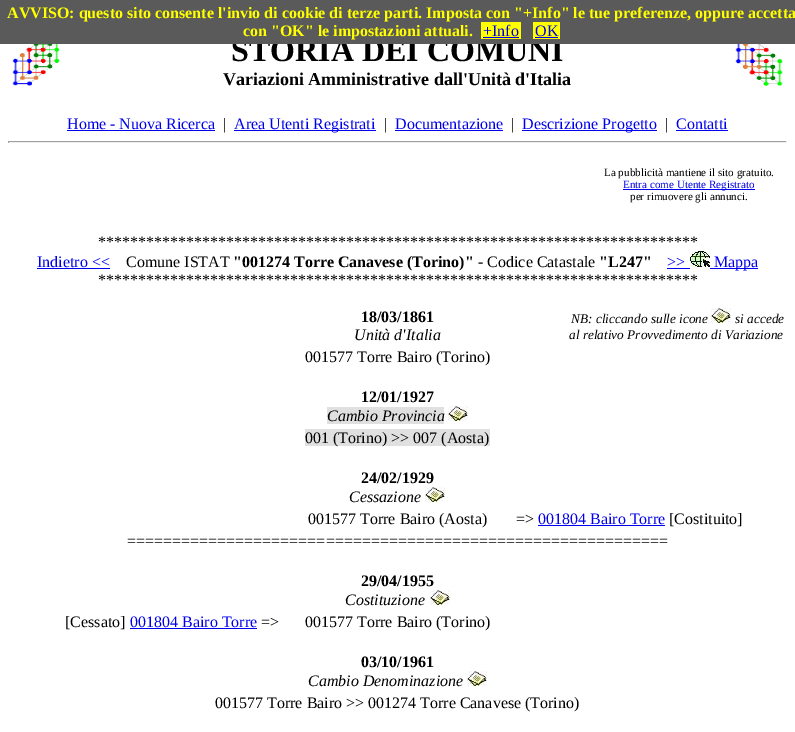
%!PS
<< /PageSize [795 732] >> setpagedevice
/picture { 5 dict begin { /h /w /y /x /name } { exch def } forall
  gsave x y translate w h scale
  w h 8 [w 0 0 h 0 0] name (r) file false 3 colorimage grestore end } def
0 732 translate 1 -1 scale
4 setmiterlimit
1 setgray
0 0 795 732 rectfill
/LiberationSerif-Bold [32 0 0 -32 0 0] selectfont
0 setgray
231 61 moveto (STORIA DEI COMUNI) show
0.353 setgray
0 0 795 44 rectfill
/LiberationSerif-Bold [16 0 0 -16 0 0] selectfont
1 1 0 setrgbcolor
7 18 moveto (AVVISO: questo sito consente l'invio di cookie di terze parti. Imposta con "+Info" le tue preferenze, oppure accetta) show
243 36 moveto (con "OK" le impostazioni attuali.) show
481 22 40 17 rectfill
/LiberationSerif-Regular [16 0 0 -16 0 0] selectfont
0 0 0.933 setrgbcolor
483 36 moveto (+Info) show
483 37 36 1 rectfill
1 1 0 setrgbcolor
533 22 27 17 rectfill
0 0 0.933 setrgbcolor
535 36 moveto (OK) show
535 37 23 1 rectfill
(img1.rgb) 12 44 48 42 picture
/LiberationSerif-Bold [18 0 0 -18 0 0] selectfont
0 setgray
223 85 moveto (Variazioni Amministrative dall'Unità d'Italia) show
(img2.rgb) 735 44 48 42 picture
/LiberationSerif-Regular [16 0 0 -16 0 0] selectfont
0 0 0.933 setrgbcolor
67 129 moveto (Home - Nuova Ricerca) show
67 130 148 1 rectfill
0 setgray
223 129 moveto (|) show
0 0 0.933 setrgbcolor
234 130 142 1 rectfill
234 129 moveto (Area Utenti Registrati) show
0 setgray
384 129 moveto (|) show
0 0 0.933 setrgbcolor
395 129 moveto (Documentazione) show
395 130 108 1 rectfill
0 setgray
511 129 moveto (|) show
0 0 0.933 setrgbcolor
522 130 135 1 rectfill
522 129 moveto (Descrizione Progetto) show
0 setgray
665 129 moveto (|) show
0 0 0.933 setrgbcolor
676 129 moveto (Contatti) show
676 130 52 1 rectfill
0.624 setgray
8 141 779 1 rectfill
0.933 setgray
786 141 1 2 rectfill
8 142 779 1 rectfill
0.624 setgray
8 141 1 2 rectfill
/LiberationSerif-Regular [11.1 0 0 -11.1 0 0] selectfont
0 setgray
604 176 moveto (La pubblicità mantiene il sito gratuito.) show
0 0 0.933 setrgbcolor
623 189 132 1 rectfill
623 188 moveto (Entra come Utente Registrato) show
0 setgray
630 200 moveto (per rimuovere gli annunci.) show
/LiberationSerif-Regular [16 0 0 -16 0 0] selectfont
98 247 moveto (***************************************************************************) show
0 0 0.933 setrgbcolor
37 267 moveto (Indietro <<) show
37 268 73 1 rectfill
0 setgray
126 267 moveto (Comune ISTAT) show
/LiberationSerif-Bold [16 0 0 -16 0 0] selectfont
233 267 moveto ("001274 Torre Canavese \(Torino\)") show
/LiberationSerif-Regular [16 0 0 -16 0 0] selectfont
478 267 moveto (- Codice Catastale) show
/LiberationSerif-Bold [16 0 0 -16 0 0] selectfont
599 267 moveto ("L247") show
/LiberationSerif-Regular [16 0 0 -16 0 0] selectfont
0 0 0.933 setrgbcolor
667 267 moveto (>>) show
667 268 23 1 rectfill
(img3.rgb) 690 251 20 16 picture
710 268 48 1 rectfill
714 267 moveto (Mappa) show
0 setgray
98 285 moveto (***************************************************************************) show
/LiberationSerif-Bold [16 0 0 -16 0 0] selectfont
361 322 moveto (18/03/1861) show
/LiberationSerif-Italic [16 0 0 -16 0 0] selectfont
354 340 moveto (Unità d'Italia) show
/LiberationSerif-Italic [13.3 0 0 -13.3 0 0] selectfont
571 323 moveto (NB: cliccando sulle icone) show
(img4.rgb) 711 308 20 15 picture
735 323 moveto (si accede) show
569 339 moveto (al relativo Provvedimento di Variazione) show
/LiberationSerif-Regular [16 0 0 -16 0 0] selectfont
305 362 moveto (001577 Torre Bairo \(Torino\)) show
/LiberationSerif-Bold [16 0 0 -16 0 0] selectfont
361 402 moveto (12/01/1927) show
0.878 setgray
327 407 117 17 rectfill
/LiberationSerif-Italic [16 0 0 -16 0 0] selectfont
0 setgray
327 421 moveto (Cambio Provincia) show
(img4.rgb) 448 406 20 15 picture
0.878 setgray
305 429 185 17 rectfill
/LiberationSerif-Regular [16 0 0 -16 0 0] selectfont
0 setgray
305 443 moveto (001 \(Torino\) >> 007 \(Aosta\)) show
/LiberationSerif-Bold [16 0 0 -16 0 0] selectfont
361 483 moveto (24/02/1929) show
/LiberationSerif-Italic [16 0 0 -16 0 0] selectfont
349 502 moveto (Cessazione) show
(img4.rgb) 425 487 20 15 picture
/LiberationSerif-Regular [16 0 0 -16 0 0] selectfont
308 524 moveto (001577 Torre Bairo \(Aosta\)) show
516 524 moveto (=>) show
0 0 0.933 setrgbcolor
538 524 moveto (001804 Bairo Torre) show
538 525 127 1 rectfill
0 setgray
669 524 moveto ([Costituito]) show
127 546 moveto (============================================================) show
/LiberationSerif-Bold [16 0 0 -16 0 0] selectfont
361 586 moveto (29/04/1955) show
/LiberationSerif-Italic [16 0 0 -16 0 0] selectfont
345 605 moveto (Costituzione) show
(img4.rgb) 430 590 20 15 picture
/LiberationSerif-Regular [16 0 0 -16 0 0] selectfont
65 627 moveto ([Cessato]) show
0 0 0.933 setrgbcolor
130 627 moveto (001804 Bairo Torre) show
130 628 127 1 rectfill
0 setgray
261 627 moveto (=>) show
305 627 moveto (001577 Torre Bairo \(Torino\)) show
/LiberationSerif-Bold [16 0 0 -16 0 0] selectfont
361 667 moveto (03/10/1961) show
/LiberationSerif-Italic [16 0 0 -16 0 0] selectfont
308 686 moveto (Cambio Denominazione) show
(img4.rgb) 467 671 20 15 picture
/LiberationSerif-Regular [16 0 0 -16 0 0] selectfont
215 708 moveto (001577 Torre Bairo >> 001274 Torre Canavese \(Torino\)) show
showpage
